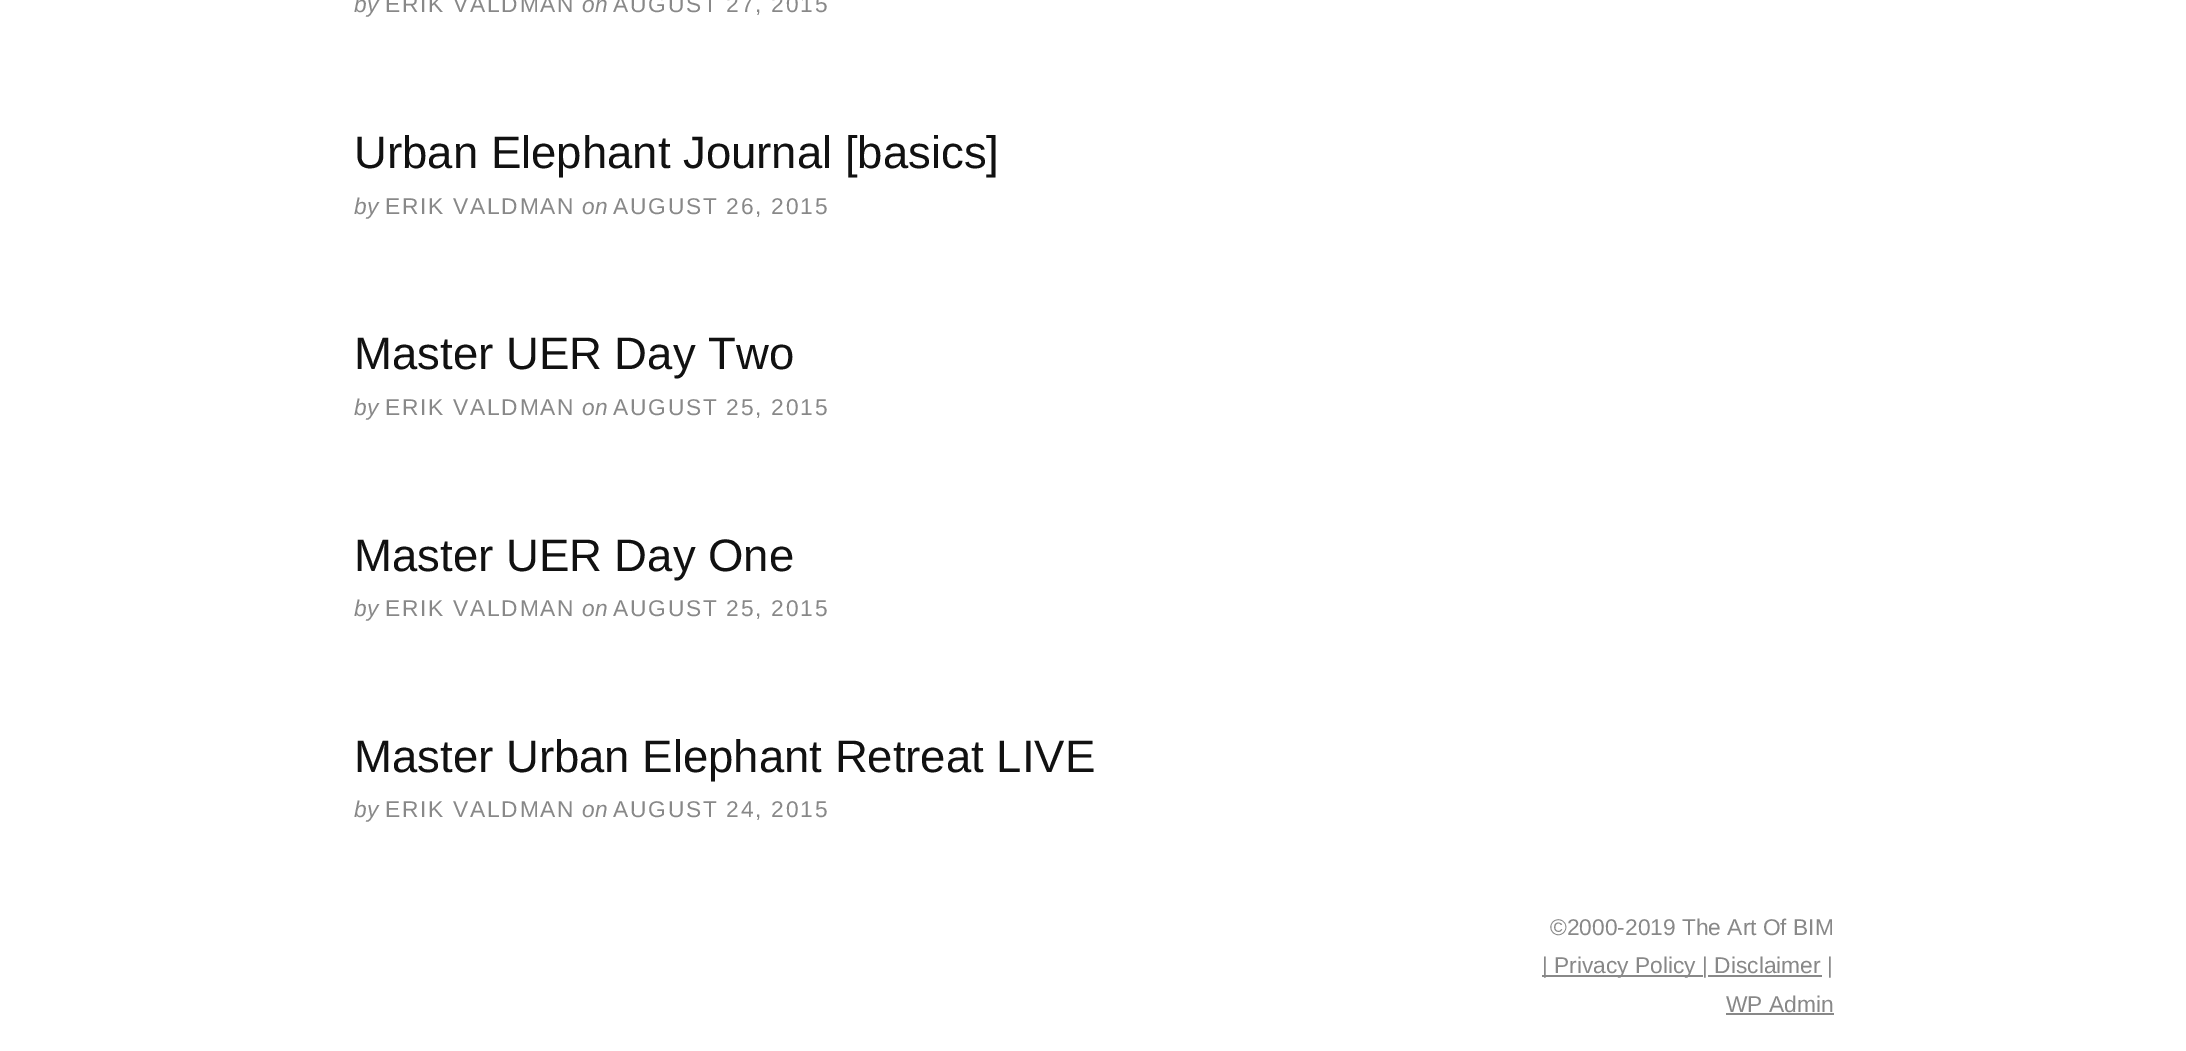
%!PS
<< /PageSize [2186 1051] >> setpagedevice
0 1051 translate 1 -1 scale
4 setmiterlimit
1 setgray
0 0 2186 1051 rectfill
/LiberationSans-Italic [22.75 0 0 -22.75 0 0] selectfont
0.533 setgray
354 12 moveto (by) show
/LiberationSans-Regular [22.75 0 0 -22.75 0 0] selectfont
385 12 moveto 1.75 0 (ERIK VALDMAN) ashow
/LiberationSans-Italic [22.75 0 0 -22.75 0 0] selectfont
582 12 moveto (on) show
/LiberationSans-Regular [22.75 0 0 -22.75 0 0] selectfont
613 12 moveto 1.75 0 (AUGUST 27, 2015) ashow
/LiberationSans-Regular [45.5 0 0 -45.5 0 0] selectfont
0.067 setgray
354 168 moveto (Urban Elephant Journal [basics]) show
/LiberationSans-Italic [22.75 0 0 -22.75 0 0] selectfont
0.533 setgray
354 214 moveto (by) show
/LiberationSans-Regular [22.75 0 0 -22.75 0 0] selectfont
385 214 moveto 1.75 0 (ERIK VALDMAN) ashow
/LiberationSans-Italic [22.75 0 0 -22.75 0 0] selectfont
582 214 moveto (on) show
/LiberationSans-Regular [22.75 0 0 -22.75 0 0] selectfont
613 214 moveto 1.75 0 (AUGUST 26, 2015) ashow
/LiberationSans-Regular [45.5 0 0 -45.5 0 0] selectfont
0.067 setgray
354 369 moveto (Master UER Day Two) show
/LiberationSans-Italic [22.75 0 0 -22.75 0 0] selectfont
0.533 setgray
354 415 moveto (by) show
/LiberationSans-Regular [22.75 0 0 -22.75 0 0] selectfont
385 415 moveto 1.75 0 (ERIK VALDMAN) ashow
/LiberationSans-Italic [22.75 0 0 -22.75 0 0] selectfont
582 415 moveto (on) show
/LiberationSans-Regular [22.75 0 0 -22.75 0 0] selectfont
613 415 moveto 1.75 0 (AUGUST 25, 2015) ashow
/LiberationSans-Regular [45.5 0 0 -45.5 0 0] selectfont
0.067 setgray
354 571 moveto (Master UER Day One) show
/LiberationSans-Italic [22.75 0 0 -22.75 0 0] selectfont
0.533 setgray
354 616 moveto (by) show
/LiberationSans-Regular [22.75 0 0 -22.75 0 0] selectfont
385 616 moveto 1.75 0 (ERIK VALDMAN) ashow
/LiberationSans-Italic [22.75 0 0 -22.75 0 0] selectfont
582 616 moveto (on) show
/LiberationSans-Regular [22.75 0 0 -22.75 0 0] selectfont
613 616 moveto 1.75 0 (AUGUST 25, 2015) ashow
/LiberationSans-Regular [45.5 0 0 -45.5 0 0] selectfont
0.067 setgray
354 772 moveto (Master Urban Elephant Retreat LIVE) show
/LiberationSans-Italic [22.75 0 0 -22.75 0 0] selectfont
0.533 setgray
354 817 moveto (by) show
/LiberationSans-Regular [22.75 0 0 -22.75 0 0] selectfont
385 817 moveto 1.75 0 (ERIK VALDMAN) ashow
/LiberationSans-Italic [22.75 0 0 -22.75 0 0] selectfont
582 817 moveto (on) show
/LiberationSans-Regular [22.75 0 0 -22.75 0 0] selectfont
613 817 moveto 1.75 0 (AUGUST 24, 2015) ashow
1550 935 moveto (©2000-2019 The Art Of BIM) show
1542 975 161 2 rectfill
1542 973 moveto (| Privacy Policy | Disclaimer |) show
1708 975 114 2 rectfill
1726 1012 moveto (WP Admin) show
1726 1013 108 2 rectfill
showpage
